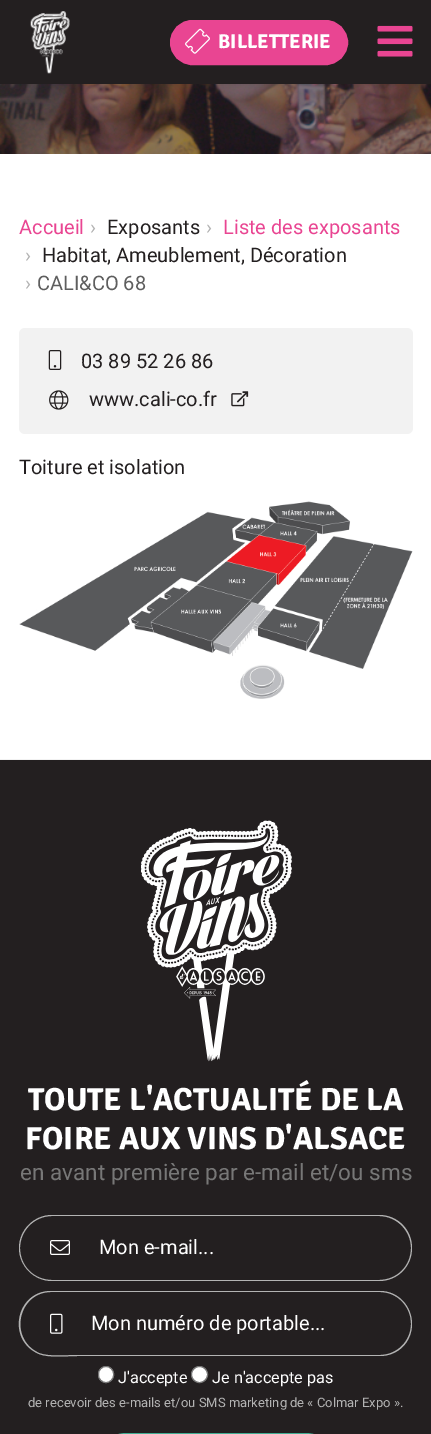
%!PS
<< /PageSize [431 1434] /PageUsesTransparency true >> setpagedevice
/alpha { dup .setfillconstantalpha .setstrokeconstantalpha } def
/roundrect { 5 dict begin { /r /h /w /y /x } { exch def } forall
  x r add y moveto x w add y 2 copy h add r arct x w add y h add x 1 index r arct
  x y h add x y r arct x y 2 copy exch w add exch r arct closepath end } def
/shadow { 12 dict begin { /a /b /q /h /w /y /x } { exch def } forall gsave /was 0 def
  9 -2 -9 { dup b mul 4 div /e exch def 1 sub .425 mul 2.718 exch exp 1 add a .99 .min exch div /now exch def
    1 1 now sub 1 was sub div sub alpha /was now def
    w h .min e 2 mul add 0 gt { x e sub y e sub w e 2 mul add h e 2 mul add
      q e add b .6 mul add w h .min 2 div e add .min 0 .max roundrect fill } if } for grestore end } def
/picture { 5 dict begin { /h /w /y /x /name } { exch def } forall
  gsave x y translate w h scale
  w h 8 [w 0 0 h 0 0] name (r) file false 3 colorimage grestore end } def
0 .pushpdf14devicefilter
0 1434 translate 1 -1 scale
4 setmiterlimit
1 setgray
0 0 431 1434 rectfill
(img4.rgb) 0 84 431 70 picture
0.137 0.122 0.125 setrgbcolor
0 1 431 83 0 3 0.2 shadow
0 0 431 84 rectfill
(img1.rgb) 30 11 40 63 picture
0.914 0.271 0.573 setrgbcolor
170.5 20.5 177 44 22 roundrect gsave fill grestore
stroke
(img2.rgb) 185 28 25 26 picture
/Signika-Light [20 0 0 -20 0 0] selectfont
1 setgray
218 48 moveto (BILLETTERIE) show
(img3.rgb) 377 25 36 32 picture
/Roboto-Regular [20 0 0 -20 0 0] selectfont
0.914 0.271 0.573 setrgbcolor
19 234 moveto (Accueil) show
0.702 setgray
90 234 moveto (›) show
0.137 0.122 0.125 setrgbcolor
107 234 moveto (Exposants) show
0.702 setgray
206 234 moveto (›) show
0.914 0.271 0.573 setrgbcolor
223 234 moveto (Liste des exposants) show
0.702 setgray
25 262 moveto (›) show
0.137 0.122 0.125 setrgbcolor
42 262 moveto (Habitat, Ameublement, Décoration) show
0.702 setgray
25 290 moveto (›) show
0.369 setgray
37 290 moveto (CALI&CO 68) show
0.949 setgray
19 328 394 106 6 roundrect fill
(img5.rgb) 48 350 14 20 picture
0.137 0.122 0.125 setrgbcolor
81 368 moveto (03 89 52 26 86) show
(img6.rgb) 49 390 20 20 picture
89 406 moveto (www.cali-co.fr) show
(img7.rgb) 231 391 18 16 picture
19 474 moveto (Toiture et isolation) show
(img8.rgb) 19 501 394 198 picture
0.949 setgray
0 759 431 1 rectfill
0.137 0.122 0.125 setrgbcolor
0 760 431 674 rectfill
(img9.rgb) 141 820 151 242 picture
/Signika-Light [32 0 0 -32 0 0] selectfont
1 setgray
28 1110 moveto (TOUTE L'ACTUALITÉ DE LA) show
25 1149 moveto (FOIRE AUX VINS D'ALSACE) show
/Roboto-Regular [22.5 0 0 -22.5 0 0] selectfont
0.467 setgray
20 1180 moveto (en avant première par e-mail et/ou sms) show
0.702 setgray
newpath 52 1215 moveto 85 1215 lineto 85 1281 lineto 52 1281 lineto 34 1281 19 1266 19 1248 curveto 19 1230 34 1215 52 1215 curveto closepath 52 1216 moveto 85 1216 lineto 85 1280 lineto 52 1280 lineto 34 1280 20 1266 20 1248 curveto 20 1231 34 1216 52 1216 curveto closepath eofill
(img10.rgb) 50 1240 20 15 picture
newpath 84 1215 moveto 379 1215 lineto 398 1215 412 1230 412 1248 curveto 412 1266 398 1281 379 1281 curveto 84 1281 lineto closepath 84 1216 moveto 379 1216 lineto 397 1216 411 1231 411 1248 curveto 411 1266 397 1280 379 1280 curveto 84 1280 lineto closepath eofill
/Roboto-Regular [20 0 0 -20 0 0] selectfont
1 setgray
99 1254 moveto (Mon e-mail...) show
0.702 setgray
newpath 51 1291 moveto 78 1291 lineto 78 1356 lineto 66 1356 49 1358 39 1354 curveto 6 1340 16 1291 51 1291 curveto closepath 51 1292 moveto 78 1292 lineto 78 1355 lineto 67 1355 49 1357 39 1353 curveto 8 1339 18 1292 51 1292 curveto closepath eofill
(img11.rgb) 50 1313 13 21 picture
newpath 76 1291 moveto 380 1291 lineto 398 1291 412 1306 412 1324 curveto 412 1342 398 1356 380 1356 curveto 76 1356 lineto closepath 76 1292 moveto 380 1292 lineto 397 1292 411 1306 411 1324 curveto 411 1341 397 1355 380 1355 curveto 76 1355 lineto closepath eofill
1 setgray
91 1330 moveto (Mon numéro de portable...) show
98.5 1366.5 15 16 7.5 roundrect gsave fill grestore
0.463 setgray
stroke
/Roboto-Regular [16.25 0 0 -16.25 0 0] selectfont
1 setgray
118 1383 moveto (J'accepte) show
newpath 199.5 1374.5 8 0 360 arc closepath gsave fill grestore
0.463 setgray
stroke
1 setgray
212 1383 moveto (Je n'accepte pas) show
/Roboto-Regular [13 0 0 -13 0 0] selectfont
0.702 setgray
28 1407 moveto (de recevoir des e-mails et/ou SMS marketing de « Colmar Expo ».) show
0.251 0.678 0.576 setrgbcolor
94 1433 244 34 32.5 roundrect fill
.poppdf14devicefilter showpage
